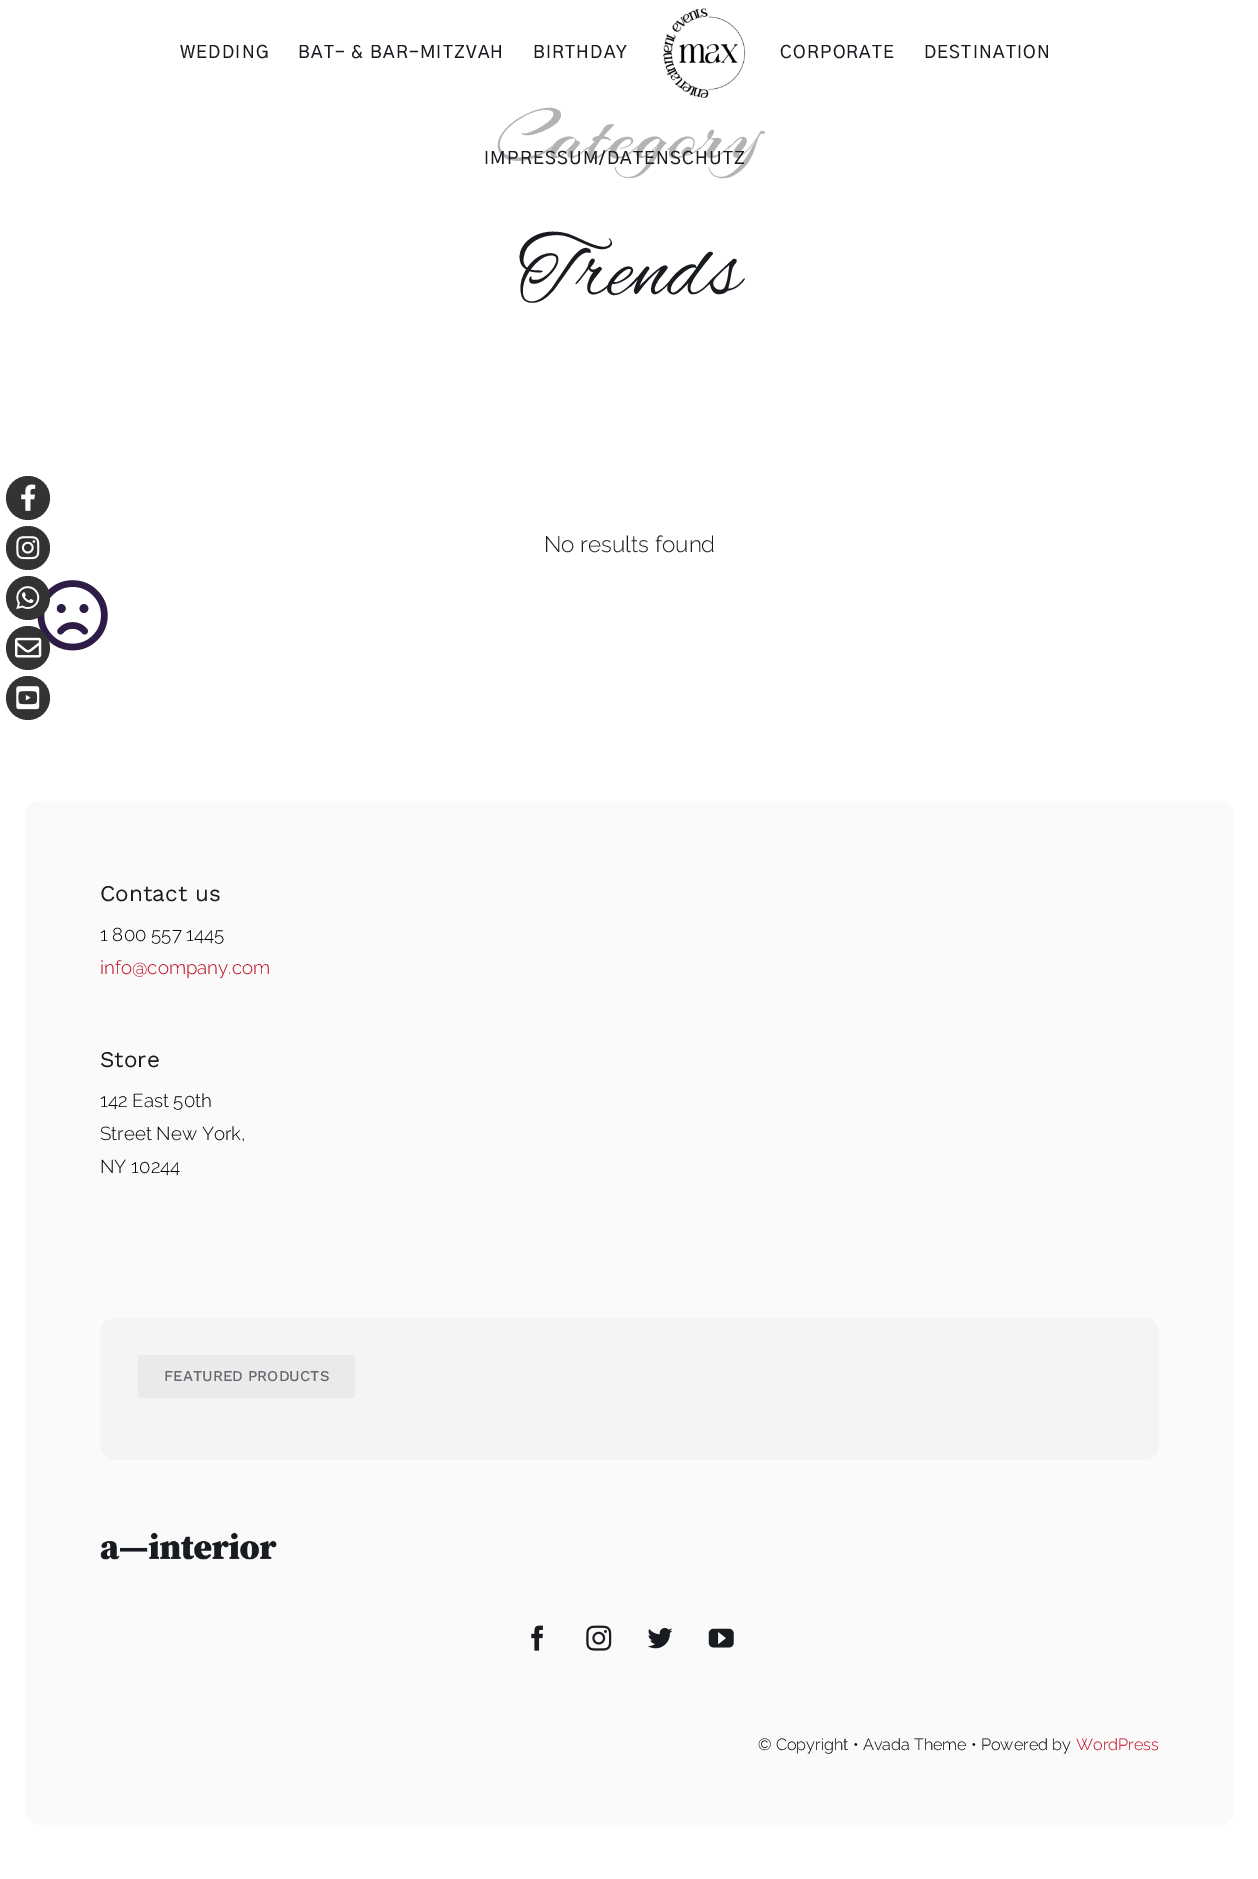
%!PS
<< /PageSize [1258 1879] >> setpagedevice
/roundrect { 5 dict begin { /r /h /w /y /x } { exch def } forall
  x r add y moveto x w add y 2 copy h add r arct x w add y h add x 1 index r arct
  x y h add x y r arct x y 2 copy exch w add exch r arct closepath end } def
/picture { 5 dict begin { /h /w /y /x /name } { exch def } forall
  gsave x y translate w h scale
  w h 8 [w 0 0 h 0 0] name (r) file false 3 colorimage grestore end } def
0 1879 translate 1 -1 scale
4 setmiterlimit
1 setgray
0 0 1258 1879 rectfill
0.2 setgray
newpath 28 498 22 0 360 arc closepath fill
(img1.rgb) 21 484 15 27 picture
newpath 28 548 22 0 360 arc closepath fill
(img2.rgb) 16 536 24 24 picture
(img7.rgb) 37 580 71 71 picture
newpath 28 598 22 0 360 arc closepath fill
(img3.rgb) 16 586 24 24 picture
newpath 28 648 22 0 360 arc closepath fill
(img4.rgb) 15 637 27 21 picture
newpath 28 698 22 0 360 arc closepath fill
(img5.rgb) 16 686 24 24 picture
/GothicA1-Medium [17.5 0 0 -17.5 0 0] selectfont
0.094 0.106 0.125 setrgbcolor
180 58 moveto 1.25 0 (WEDDING) ashow
298 58 moveto 1.25 0 (BAT- & BAR-MITZVAH) ashow
533 58 moveto 1.25 0 (BIRTHDAY) ashow
(img6.rgb) 663 8 83 90 picture
780 58 moveto 1.25 0 (CORPORATE) ashow
924 58 moveto 1.25 0 (DESTINATION) ashow
/Arizonia-Regular [75 0 0 -75 0 0] selectfont
0.702 setgray
496 158 moveto 1.25 0 (Category) ashow
/GothicA1-Medium [17.5 0 0 -17.5 0 0] selectfont
0.094 0.106 0.125 setrgbcolor
484 164 moveto 1.25 0 (IMPRESSUM/DATENSCHUTZ) ashow
/AlexBrush-Regular [87.5 0 0 -87.5 0 0] selectfont
518 294 moveto (Trends) show
/Raleway-Light [22.5 0 0 -22.5 0 0] selectfont
544 552 moveto (No results found) show
0.98 setgray
25 801 1209 1024 15 roundrect fill
/WorkSans-Regular [22.5 0 0 -22.5 0 0] selectfont
0.094 0.106 0.125 setrgbcolor
100 901 moveto (Contact us) show
/Raleway-Light [18.75 0 0 -18.75 0 0] selectfont
0 setgray
100 941 moveto (1 800 557 1445) show
0.753 0.016 0.094 setrgbcolor
100 974 moveto (info@company.com) show
/WorkSans-Regular [22.5 0 0 -22.5 0 0] selectfont
0.094 0.106 0.125 setrgbcolor
100 1067 moveto (Store) show
/Raleway-Light [18.75 0 0 -18.75 0 0] selectfont
0 setgray
100 1107 moveto (142 East 50th) show
100 1140 moveto (Street New York,) show
100 1173 moveto (NY 10244) show
0.953 0.957 0.957 setrgbcolor
100 1318 1059 142 15 roundrect fill
0.918 0.918 0.922 setrgbcolor
138 1355 217 43 rectfill
/WorkSans-Medium [15 0 0 -15 0 0] selectfont
0.396 0.416 0.439 setrgbcolor
164 1381 moveto (FEATURED PRODUCTS) show
(img8.rgb) 100 1532 177 28 picture
(img9.rgb) 531 1625 12 26 picture
(img10.rgb) 586 1625 26 26 picture
(img11.rgb) 647 1628 26 21 picture
(img12.rgb) 708 1628 26 20 picture
/Raleway-Light [16.25 0 0 -16.25 0 0] selectfont
0 setgray
758 1750 moveto (© Copyright • Avada Theme • Powered by) show
0.753 0.016 0.094 setrgbcolor
1076 1750 moveto (WordPress) show
showpage
